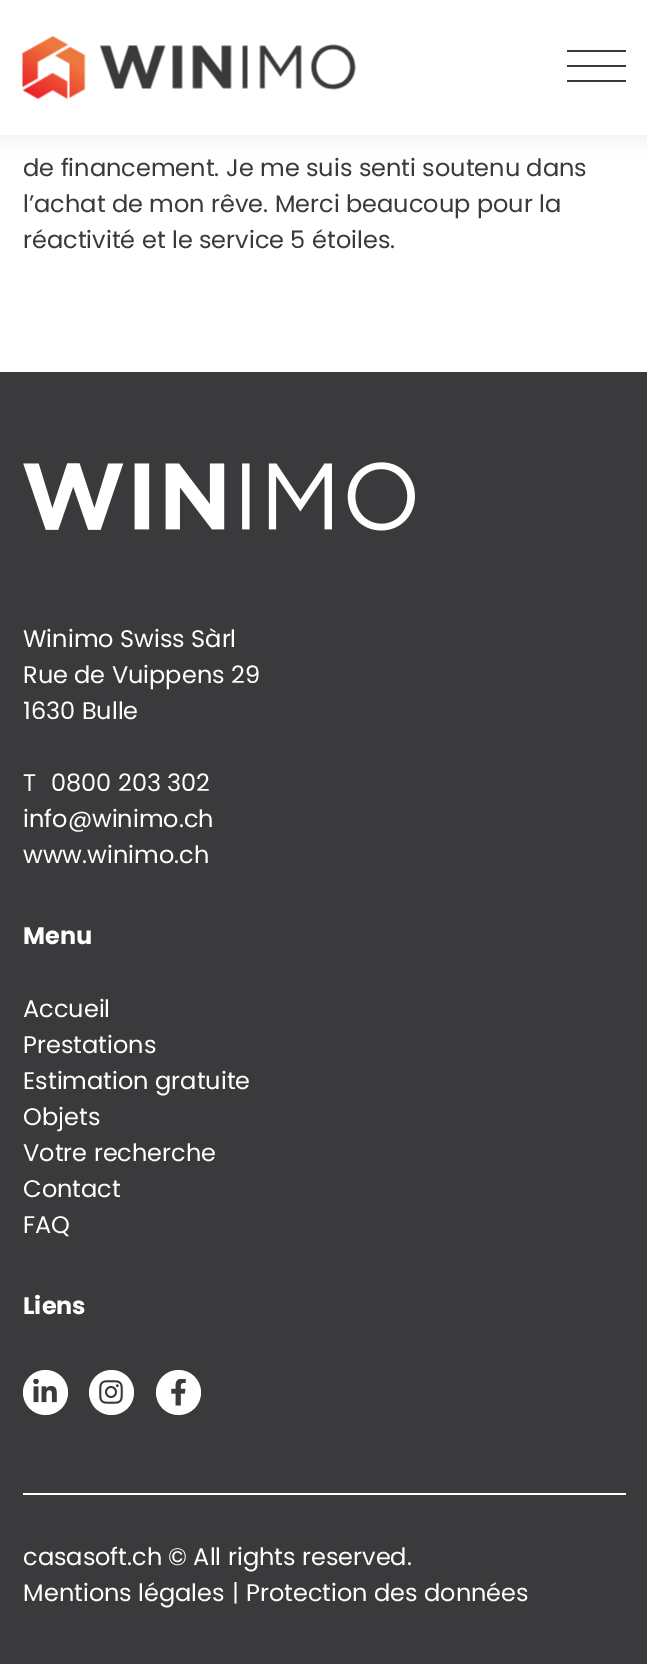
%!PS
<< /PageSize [647 1664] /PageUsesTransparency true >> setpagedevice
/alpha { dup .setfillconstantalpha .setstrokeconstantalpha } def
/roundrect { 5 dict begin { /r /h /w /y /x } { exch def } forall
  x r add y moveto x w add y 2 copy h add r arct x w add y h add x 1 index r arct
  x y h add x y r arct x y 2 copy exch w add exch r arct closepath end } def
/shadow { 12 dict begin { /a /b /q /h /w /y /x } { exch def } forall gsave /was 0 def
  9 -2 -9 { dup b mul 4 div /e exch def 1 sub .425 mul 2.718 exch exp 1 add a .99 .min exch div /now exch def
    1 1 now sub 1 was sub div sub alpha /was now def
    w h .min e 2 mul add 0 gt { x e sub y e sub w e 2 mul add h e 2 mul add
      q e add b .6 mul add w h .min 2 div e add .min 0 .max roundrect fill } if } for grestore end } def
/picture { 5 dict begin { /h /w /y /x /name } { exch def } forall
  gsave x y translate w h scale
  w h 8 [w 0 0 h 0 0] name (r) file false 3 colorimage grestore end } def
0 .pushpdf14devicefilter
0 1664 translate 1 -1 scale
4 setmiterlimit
1 setgray
0 0 647 1664 rectfill
0.718 0.714 0.714 setrgbcolor
0 0 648 135 0 11 0.3 shadow
1 setgray
0 0 647 135 rectfill
(img1.rgb) 22 36 334 63 picture
0.227 0.227 0.235 setrgbcolor
567 65 59 2 rectfill
567 50 59 2 rectfill
567 80 59 2 rectfill
/Poppins-Regular [24 0 0 -24 0 0] selectfont
23 176 moveto (de financement. Je me suis senti soutenu dans) show
23 212 moveto (l’achat de mon rêve. Merci beaucoup pour la) show
23 248 moveto (réactivité et le service 5 étoiles.) show
0 372 647 1292 rectfill
(img2.rgb) 23 462 392 69 picture
1 setgray
23 647 moveto (Winimo Swiss Sàrl) show
23 683 moveto (Rue de Vuippens 29) show
23 719 moveto (1630 Bulle) show
23 791 moveto (T) show
51 791 moveto (0800 203 302) show
23 827 moveto (info@winimo.ch) show
23 863 moveto (www.winimo.ch) show
/Poppins-Bold [24 0 0 -24 0 0] selectfont
23 944 moveto (Menu) show
/Poppins-Regular [24 0 0 -24 0 0] selectfont
23 1017 moveto (Accueil) show
23 1053 moveto (Prestations) show
23 1089 moveto (Estimation gratuite) show
23 1125 moveto (Objets) show
23 1161 moveto (Votre recherche) show
23 1197 moveto (Contact) show
23 1233 moveto (FAQ) show
/Poppins-Bold [24 0 0 -24 0 0] selectfont
23 1314 moveto (Liens) show
newpath 45.5 1392.5 22.5 0 360 arc closepath fill
(img3.rgb) 33 1379 24 24 picture
newpath 111.5 1392.5 22.5 0 360 arc closepath fill
(img4.rgb) 99 1380 24 24 picture
newpath 178.5 1392.5 22.5 0 360 arc closepath fill
(img5.rgb) 171 1379 15 27 picture
23 1493 603 2 rectfill
/Poppins-Regular [24 0 0 -24 0 0] selectfont
23 1565 moveto (casasoft.ch) show
168 1565 moveto (© All rights reserved.) show
23 1601 moveto (Mentions légales) show
232 1601 moveto (|) show
246 1601 moveto (Protection des données) show
.poppdf14devicefilter showpage
